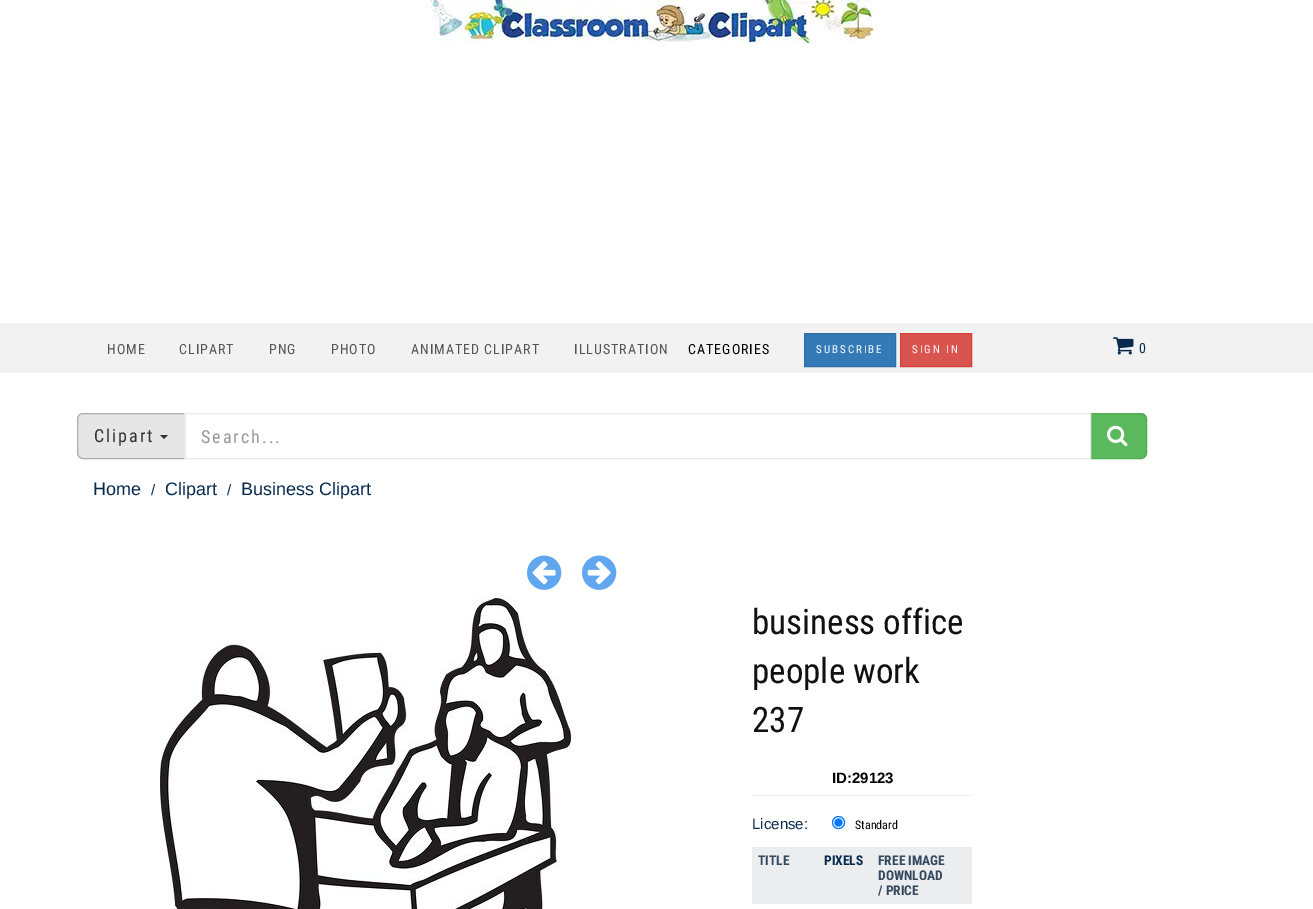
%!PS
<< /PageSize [1313 909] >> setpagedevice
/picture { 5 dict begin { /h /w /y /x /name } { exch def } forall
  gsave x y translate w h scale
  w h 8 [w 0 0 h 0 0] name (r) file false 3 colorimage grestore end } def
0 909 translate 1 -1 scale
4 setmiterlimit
1 setgray
0 0 1313 909 rectfill
(img1.rgb) 431 0 442 43 picture
0.949 setgray
0 323 1313 50 rectfill
/RobotoCondensed-Regular [14 0 0 -14 0 0] selectfont
0.337 0.333 0.333 setrgbcolor
107 354 moveto 1 0 (HOME) ashow
179 354 moveto 1 0 (CLIPART) ashow
269 354 moveto 1 0 (PNG) ashow
331 354 moveto 1 0 (PHOTO) ashow
411 354 moveto 1 0 (ANIMATED CLIPART) ashow
574 354 moveto 1 0 (ILLUSTRATION) ashow
0 setgray
688 354 moveto 1 0 (CATEGORIES) ashow
0.2 0.478 0.718 setrgbcolor
newpath 804.5 333.5 moveto 895.5 333.5 lineto 895.5 366.5 lineto 804.5 366.5 lineto closepath gsave fill grestore
0.18 0.427 0.643 setrgbcolor
stroke
/RobotoCondensed-Regular [11 0 0 -11 0 0] selectfont
1 setgray
816 353 moveto 2 0 (SUBSCRIBE) ashow
0.851 0.325 0.31 setrgbcolor
newpath 900.5 333.5 moveto 971.5 333.5 lineto 971.5 366.5 lineto 900.5 366.5 lineto closepath gsave fill grestore
0.831 0.247 0.227 setrgbcolor
stroke
1 setgray
912 353 moveto 2 0 (SIGN IN) ashow
(img2.rgb) 1113 337 21 18 picture
/RobotoCondensed-Regular [14 0 0 -14 0 0] selectfont
0.027 0.165 0.31 setrgbcolor
1139 353 moveto 1 0 (0) ashow
0.902 setgray
newpath 83 413.5 moveto 184.5 413.5 lineto 184.5 458.5 lineto 83 458.5 lineto 80 458.5 77.5 456 77.5 453 curveto 77.5 419 lineto 77.5 416 80 413.5 83 413.5 curveto closepath gsave fill grestore
0.678 setgray
stroke
/RobotoCondensed-Regular [18 0 0 -18 0 0] selectfont
0.2 setgray
94 442 moveto 2 0 (Clipart) ashow
newpath 160 435 moveto 168 435 lineto 164 439 lineto closepath fill
0.361 0.722 0.361 setrgbcolor
newpath 1090.5 413.5 moveto 1141 413.5 lineto 1144 413.5 1146.5 416 1146.5 419 curveto 1146.5 453 lineto 1146.5 456 1144 458.5 1141 458.5 curveto 1090.5 458.5 lineto closepath gsave fill grestore
0.298 0.682 0.298 setrgbcolor
stroke
0.918 setgray
184.5 413.5 906 45 rectstroke
0.6 setgray
201 443 moveto 2 0 (Search...) ashow
(img3.rgb) 1107 425 21 22 picture
/LiberationSans-Regular [18 0 0 -18 0 0] selectfont
0.027 0.165 0.31 setrgbcolor
93 495 moveto (Home) show
/LiberationSans-Regular [15 0 0 -15 0 0] selectfont
151 495 moveto (/) show
/LiberationSans-Regular [18 0 0 -18 0 0] selectfont
165 495 moveto (Clipart) show
/LiberationSans-Regular [15 0 0 -15 0 0] selectfont
227 495 moveto (/) show
/LiberationSans-Regular [18 0 0 -18 0 0] selectfont
241 495 moveto (Business Clipart) show
(img4.rgb) 527 555 35 35 picture
(img5.rgb) 582 555 35 35 picture
(img6.rgb) 160 598 411 311 picture
/RobotoCondensed-Regular [35 0 0 -35 0 0] selectfont
0.067 setgray
752 634 moveto (business office) show
752 683 moveto (people work) show
752 732 moveto (237) show
/LiberationSans-Bold [15 0 0 -15 0 0] selectfont
0 setgray
832 783 moveto (ID:29123) show
0.933 setgray
752 795 220 1 rectfill
/LiberationSans-Regular [15 0 0 -15 0 0] selectfont
0.027 0.165 0.31 setrgbcolor
752 829 moveto (License:) show
0 0.459 1 setrgbcolor
newpath 838.5 822.5 6 0 360 arc closepath stroke
newpath 838.5 822.5 4 0 360 arc closepath fill
/RobotoCondensed-Regular [12 0 0 -12 0 0] selectfont
0 setgray
855 829 moveto (Standard) show
0.922 0.929 0.937 setrgbcolor
752 847 220 57 rectfill
/RobotoCondensed-Bold [13.5 0 0 -13.5 0 0] selectfont
0.204 0.286 0.369 setrgbcolor
758 865 moveto (TITLE) show
0.027 0.165 0.31 setrgbcolor
824 865 moveto (PIXELS) show
0.204 0.286 0.369 setrgbcolor
878 865 moveto (FREE IMAGE) show
878 880 moveto (DOWNLOAD) show
878 895 moveto (/ PRICE) show
showpage
